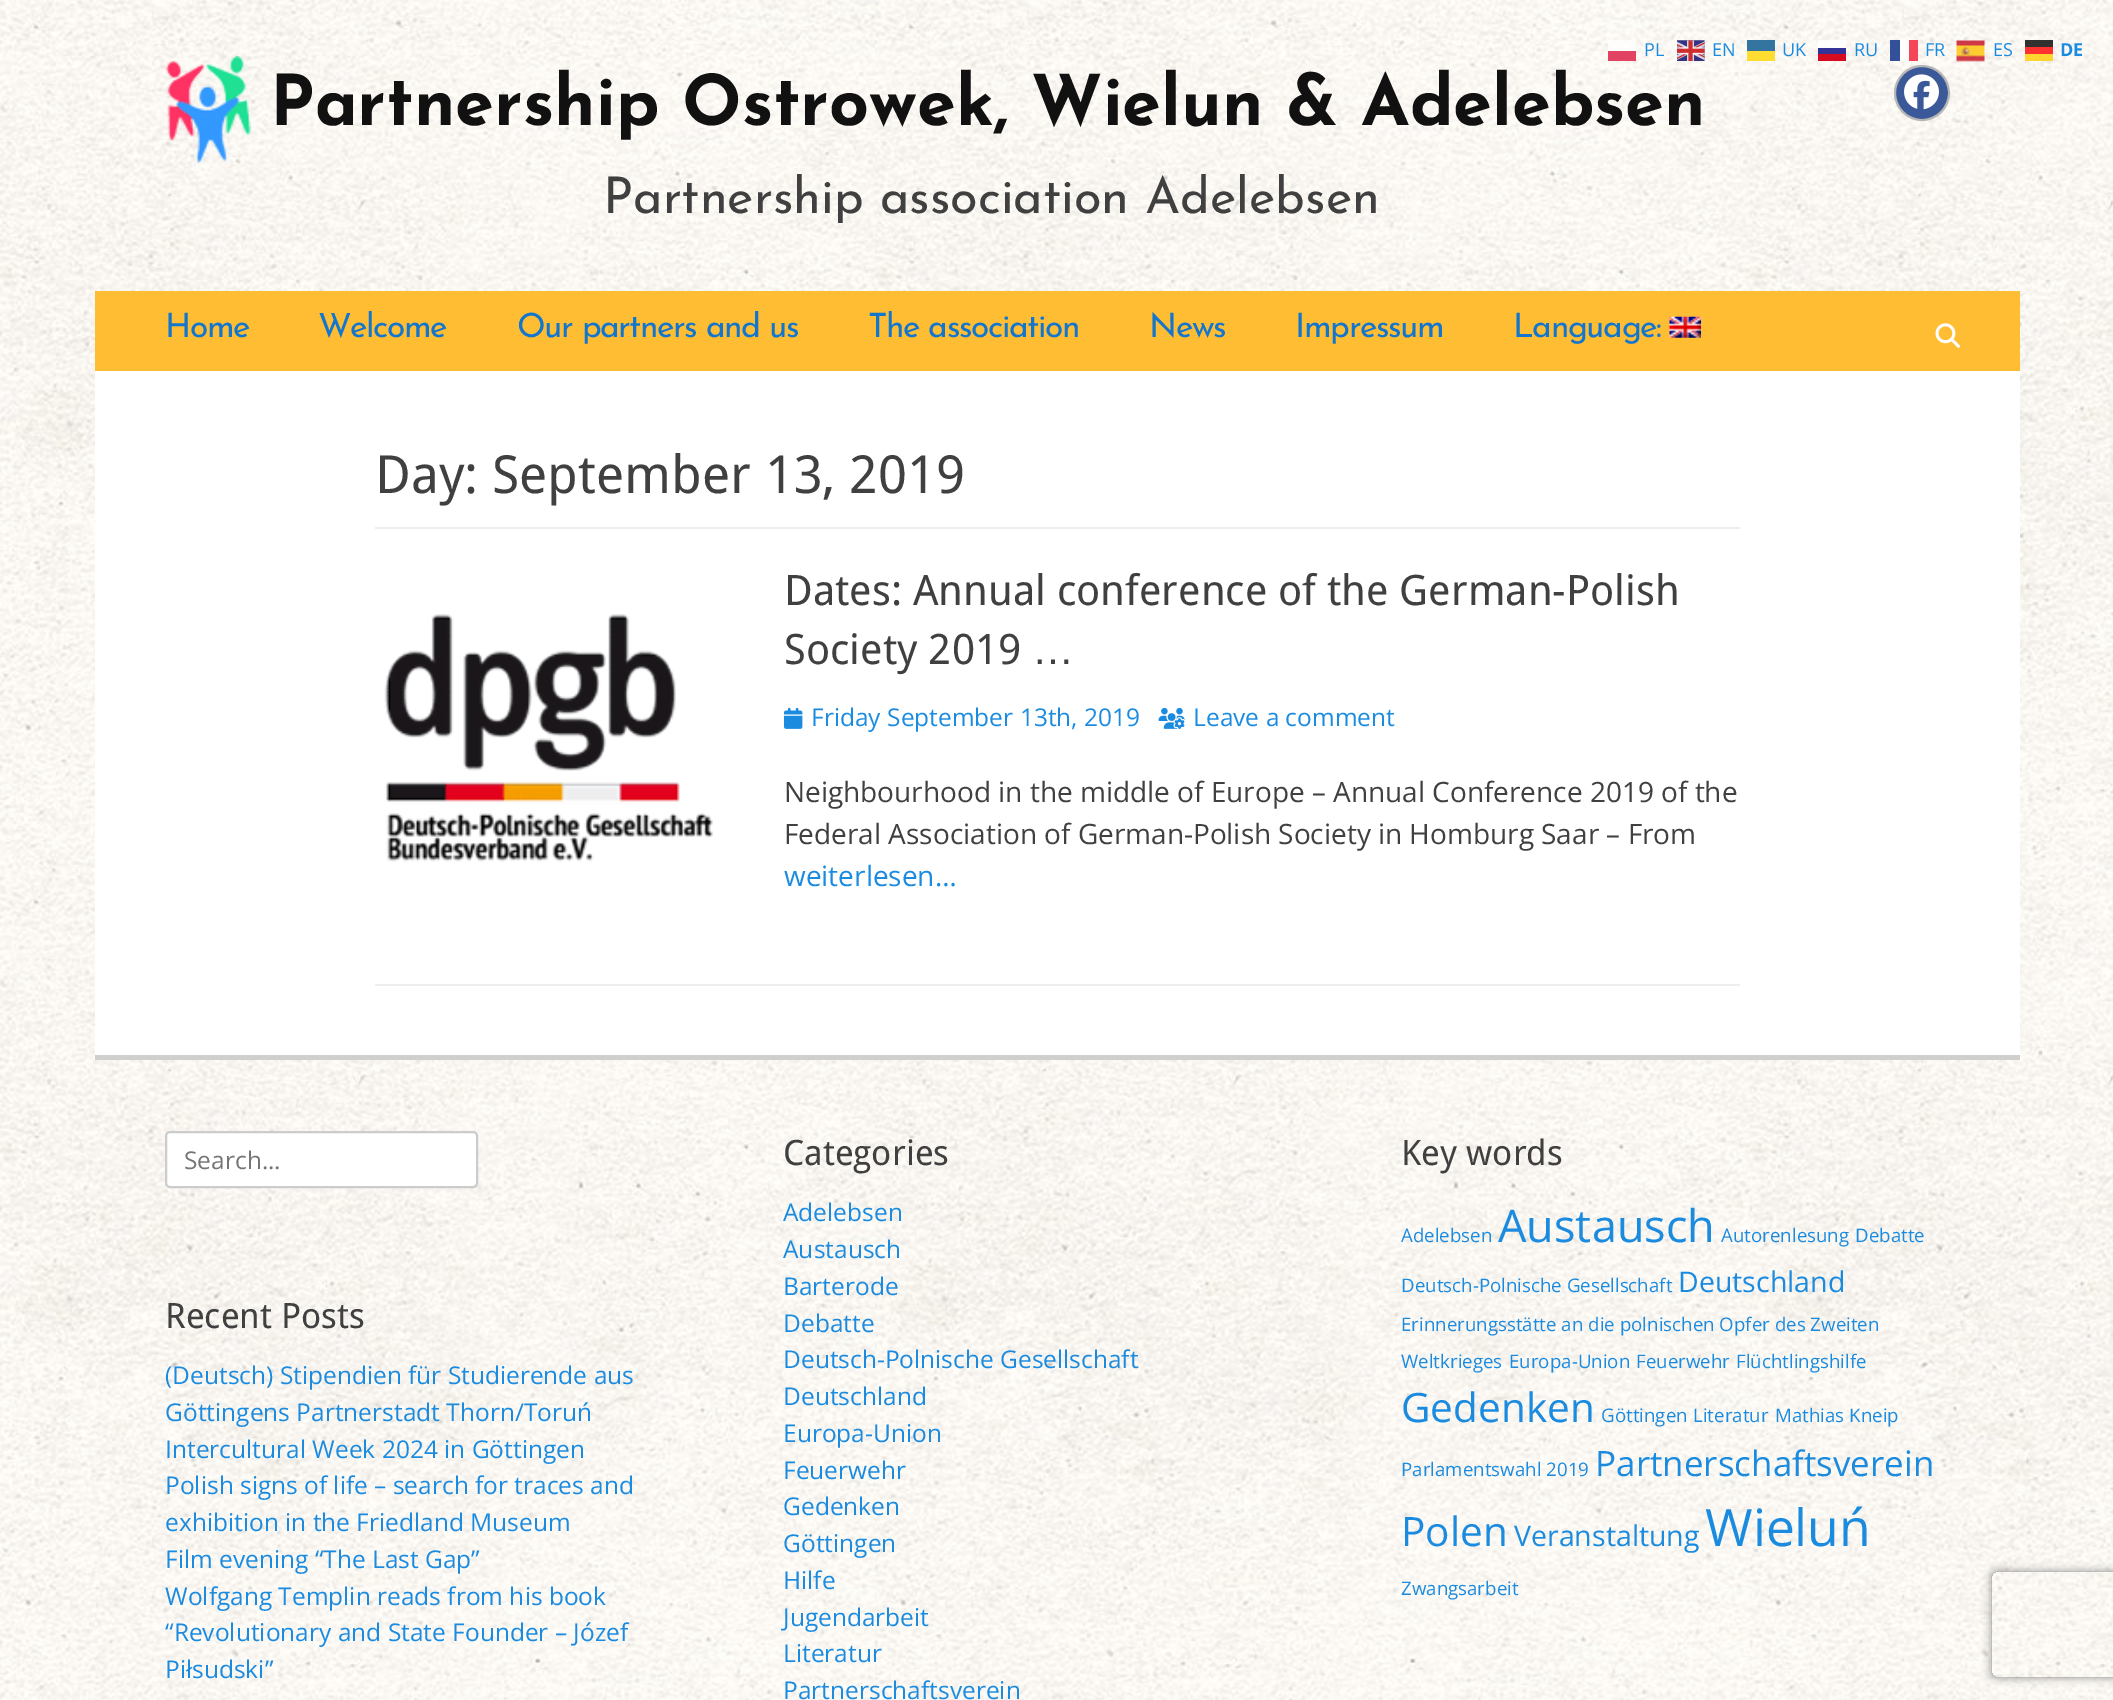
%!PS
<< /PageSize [2113 1700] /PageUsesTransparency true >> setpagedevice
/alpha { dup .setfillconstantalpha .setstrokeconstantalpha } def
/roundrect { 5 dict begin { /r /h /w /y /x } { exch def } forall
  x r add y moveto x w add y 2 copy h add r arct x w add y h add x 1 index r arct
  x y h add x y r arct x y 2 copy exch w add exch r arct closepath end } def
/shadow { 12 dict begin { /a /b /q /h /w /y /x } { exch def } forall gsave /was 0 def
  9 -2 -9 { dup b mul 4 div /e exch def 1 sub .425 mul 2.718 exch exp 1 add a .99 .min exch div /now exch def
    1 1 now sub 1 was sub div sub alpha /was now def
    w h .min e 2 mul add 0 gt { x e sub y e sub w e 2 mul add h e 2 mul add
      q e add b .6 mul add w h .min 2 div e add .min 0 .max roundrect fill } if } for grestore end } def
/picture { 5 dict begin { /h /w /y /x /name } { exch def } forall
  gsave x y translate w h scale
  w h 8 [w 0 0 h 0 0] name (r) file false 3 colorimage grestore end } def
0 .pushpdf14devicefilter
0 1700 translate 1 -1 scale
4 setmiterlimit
1 setgray
0 0 2113 1700 rectfill
(img1.rgb) 0 0 2113 1700 picture
/OpenSans-Regular [18 0 0 -18 0 0] selectfont
0.106 0.545 0.878 setrgbcolor
1644 56 moveto (PL) show
0.8 alpha
1 setgray
1608 40 28 21 rectfill
0.863 0.078 0.235 setrgbcolor
1608 51 28 10 rectfill
1 alpha
(img2.rgb) 1677 40 28 21 picture
0.106 0.545 0.878 setrgbcolor
1712 56 moveto (EN) show
1782 56 moveto (UK) show
0.8 alpha
1 0.835 0 setrgbcolor
1747 40 28 21 rectfill
0 0.357 0.733 setrgbcolor
1747 40 28 11 rectfill
1 alpha
0.106 0.545 0.878 setrgbcolor
1854 56 moveto (RU) show
0.8 alpha
1 setgray
1818 40 28 14 rectfill
0.004 0.004 0.494 setrgbcolor
1818 48 28 6 rectfill
1 alpha
0.839 0.043 0.122 setrgbcolor
1818 54 28 7 rectfill
0.106 0.545 0.878 setrgbcolor
1925 56 moveto (FR) show
0.8 alpha
1 setgray
1890 40 28 21 rectfill
0 0.149 0.498 setrgbcolor
1890 40 10 21 rectfill
0.953 0.094 0.188 setrgbcolor
1909 40 9 21 rectfill
1 alpha
(img3.rgb) 1956 40 29 22 picture
0.106 0.545 0.878 setrgbcolor
1993 56 moveto (ES) show
/OpenSans-Bold [18 0 0 -18 0 0] selectfont
2060 56 moveto (DE) show
0.8 alpha
1 0.8 0 setrgbcolor
2025 54 28 7 rectfill
0 setgray
2025 40 28 7 rectfill
1 0 0 setrgbcolor
2025 47 28 7 rectfill
1 alpha
(img4.rgb) 165 56 86 108 picture
/JosefinSans-Bold [70 0 0 -70 0 0] selectfont
0.067 setgray
270 125 moveto (Partnership Ostrowek, Wielun & Adelebsen) show
/JosefinSans-Regular [50.4 0 0 -50.4 0 0] selectfont
0.251 setgray
603 213 moveto (Partnership association Adelebsen) show
0.231 0.349 0.596 setrgbcolor
newpath 1922 93 27 0 360 arc closepath gsave fill grestore
0.714 setgray
2 setlinewidth
stroke
(img5.rgb) 1904 74 35 36 picture
1 0.741 0.2 setrgbcolor
95 291 1925 80 rectfill
/JosefinSans-Regular [33.5 0 0 -33.5 0 0] selectfont
0.071 0.463 0.808 setrgbcolor
165 337 moveto -1.4 0 (Home) ashow
318 337 moveto -1.4 0 (Welcome) ashow
517 337 moveto -1.4 0 (Our partners and us) ashow
868 337 moveto -1.4 0 (The association) ashow
1149 337 moveto -1.4 0 (News) ashow
1295 337 moveto -1.4 0 (Impressum) ashow
1513 337 moveto -1.4 0 (Language:) ashow
(img6.rgb) 1669 316 32 22 picture
(img7.rgb) 1935 323 25 25 picture
1 setgray
95 371 1925 684 rectfill
0.933 setgray
375 527 1365 2 rectfill
/DroidSans-Regular [52.5 0 0 -52.5 0 0] selectfont
0.251 setgray
375 493 moveto (Day: September 13, 2019) show
0.933 setgray
375 984 1365 2 rectfill
(img8.rgb) 384 614 329 248 picture
/DroidSans-Regular [42 0 0 -42 0 0] selectfont
0.251 setgray
784 605 moveto (Dates: Annual conference of the German-Polish) show
784 664 moveto (Society 2019) show
/LiberationSans-Regular [42 0 0 -42 0 0] selectfont
1032 664 moveto (…) show
(img9.rgb) 784 707 19 22 picture
/OpenSans-Regular [24.5 0 0 -24.5 0 0] selectfont
0.106 0.545 0.878 setrgbcolor
811 726 moveto (Friday September 13th, 2019) show
(img10.rgb) 1158 707 27 22 picture
1193 726 moveto (Leave a comment) show
/OpenSans-Regular [28 0 0 -28 0 0] selectfont
0.251 setgray
784 802 moveto (Neighbourhood in the middle of Europe – Annual Conference 2019 of the) show
784 844 moveto (Federal Association of German-Polish Society in Homburg Saar – From) show
0.106 0.545 0.878 setrgbcolor
784 886 moveto (weiterlesen…) show
0.812 setgray
95 1055 1925 5 rectfill
1 setgray
166 1132 311 55 4 roundrect gsave fill grestore
0.8 setgray
stroke
/OpenSans-Regular [24.5 0 0 -24.5 0 0] selectfont
0.459 setgray
184 1169 moveto (Search...) show
/DroidSans-Regular [35 0 0 -35 0 0] selectfont
0.251 setgray
165 1328 moveto (Recent Posts) show
/OpenSans-Regular [24.5 0 0 -24.5 0 0] selectfont
0.106 0.545 0.878 setrgbcolor
165 1384 moveto (\(Deutsch\) Stipendien für Studierende aus) show
165 1421 moveto (Göttingens Partnerstadt Thorn/Toruń) show
165 1458 moveto (Intercultural Week 2024 in Göttingen) show
165 1494 moveto (Polish signs of life – search for traces and) show
165 1531 moveto (exhibition in the Friedland Museum) show
165 1568 moveto (Film evening “The Last Gap”) show
165 1605 moveto (Wolfgang Templin reads from his book) show
165 1641 moveto (“Revolutionary and State Founder – Józef) show
165 1678 moveto (Piłsudski”) show
/DroidSans-Regular [35 0 0 -35 0 0] selectfont
0.251 setgray
783 1165 moveto (Categories) show
/OpenSans-Regular [24.5 0 0 -24.5 0 0] selectfont
0.106 0.545 0.878 setrgbcolor
783 1221 moveto (Adelebsen) show
783 1258 moveto (Austausch) show
783 1295 moveto (Barterode) show
783 1332 moveto (Debatte) show
783 1368 moveto (Deutsch-Polnische Gesellschaft) show
783 1405 moveto (Deutschland) show
783 1442 moveto (Europa-Union) show
783 1479 moveto (Feuerwehr) show
783 1515 moveto (Gedenken) show
783 1552 moveto (Göttingen) show
783 1589 moveto (Hilfe) show
783 1626 moveto (Jugendarbeit) show
783 1662 moveto (Literatur) show
783 1699 moveto (Partnerschaftsverein) show
/DroidSans-Regular [35 0 0 -35 0 0] selectfont
0.251 setgray
1401 1165 moveto (Key words) show
/OpenSans-Regular [18.7 0 0 -18.7 0 0] selectfont
0.106 0.545 0.878 setrgbcolor
1401 1242 moveto (Adelebsen) show
/OpenSans-Regular [45 0 0 -45 0 0] selectfont
1498 1242 moveto (Austausch) show
/OpenSans-Regular [18.7 0 0 -18.7 0 0] selectfont
1721 1242 moveto (Autorenlesung) show
1855 1242 moveto (Debatte) show
1401 1292 moveto (Deutsch-Polnische Gesellschaft) show
/OpenSans-Regular [28.5 0 0 -28.5 0 0] selectfont
1678 1292 moveto (Deutschland) show
/OpenSans-Regular [18.7 0 0 -18.7 0 0] selectfont
1401 1331 moveto (Erinnerungsstätte an die polnischen Opfer des Zweiten) show
1401 1368 moveto (Weltkrieges) show
1509 1368 moveto (Europa-Union) show
1636 1368 moveto (Feuerwehr) show
1736 1368 moveto (Flüchtlingshilfe) show
/OpenSans-Regular [40.5 0 0 -40.5 0 0] selectfont
1401 1422 moveto (Gedenken) show
/OpenSans-Regular [18.7 0 0 -18.7 0 0] selectfont
1601 1422 moveto (Göttingen) show
1693 1422 moveto (Literatur) show
1775 1422 moveto (Mathias Kneip) show
1401 1476 moveto (Parlamentswahl 2019) show
/OpenSans-Regular [35 0 0 -35 0 0] selectfont
1595 1476 moveto (Partnerschaftsverein) show
/OpenSans-Regular [40.5 0 0 -40.5 0 0] selectfont
1401 1546 moveto (Polen) show
/OpenSans-Regular [28.5 0 0 -28.5 0 0] selectfont
1514 1546 moveto (Veranstaltung) show
/OpenSans-Regular [51.5 0 0 -51.5 0 0] selectfont
1705 1546 moveto (Wieluń) show
/OpenSans-Regular [18.7 0 0 -18.7 0 0] selectfont
1401 1595 moveto (Zwangsarbeit) show
gsave
newpath 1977 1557 moveto 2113 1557 lineto 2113 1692 lineto 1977 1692 lineto closepath 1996 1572 moveto 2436 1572 lineto 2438 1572 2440 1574 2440 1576 curveto 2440 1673 lineto 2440 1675 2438 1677 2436 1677 curveto 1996 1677 lineto 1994 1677 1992 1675 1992 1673 curveto 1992 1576 lineto 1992 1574 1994 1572 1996 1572 curveto closepath eoclip newpath
0.502 setgray
1992 1572 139 105 4 4.5 1 shadow
grestore
.poppdf14devicefilter showpage
